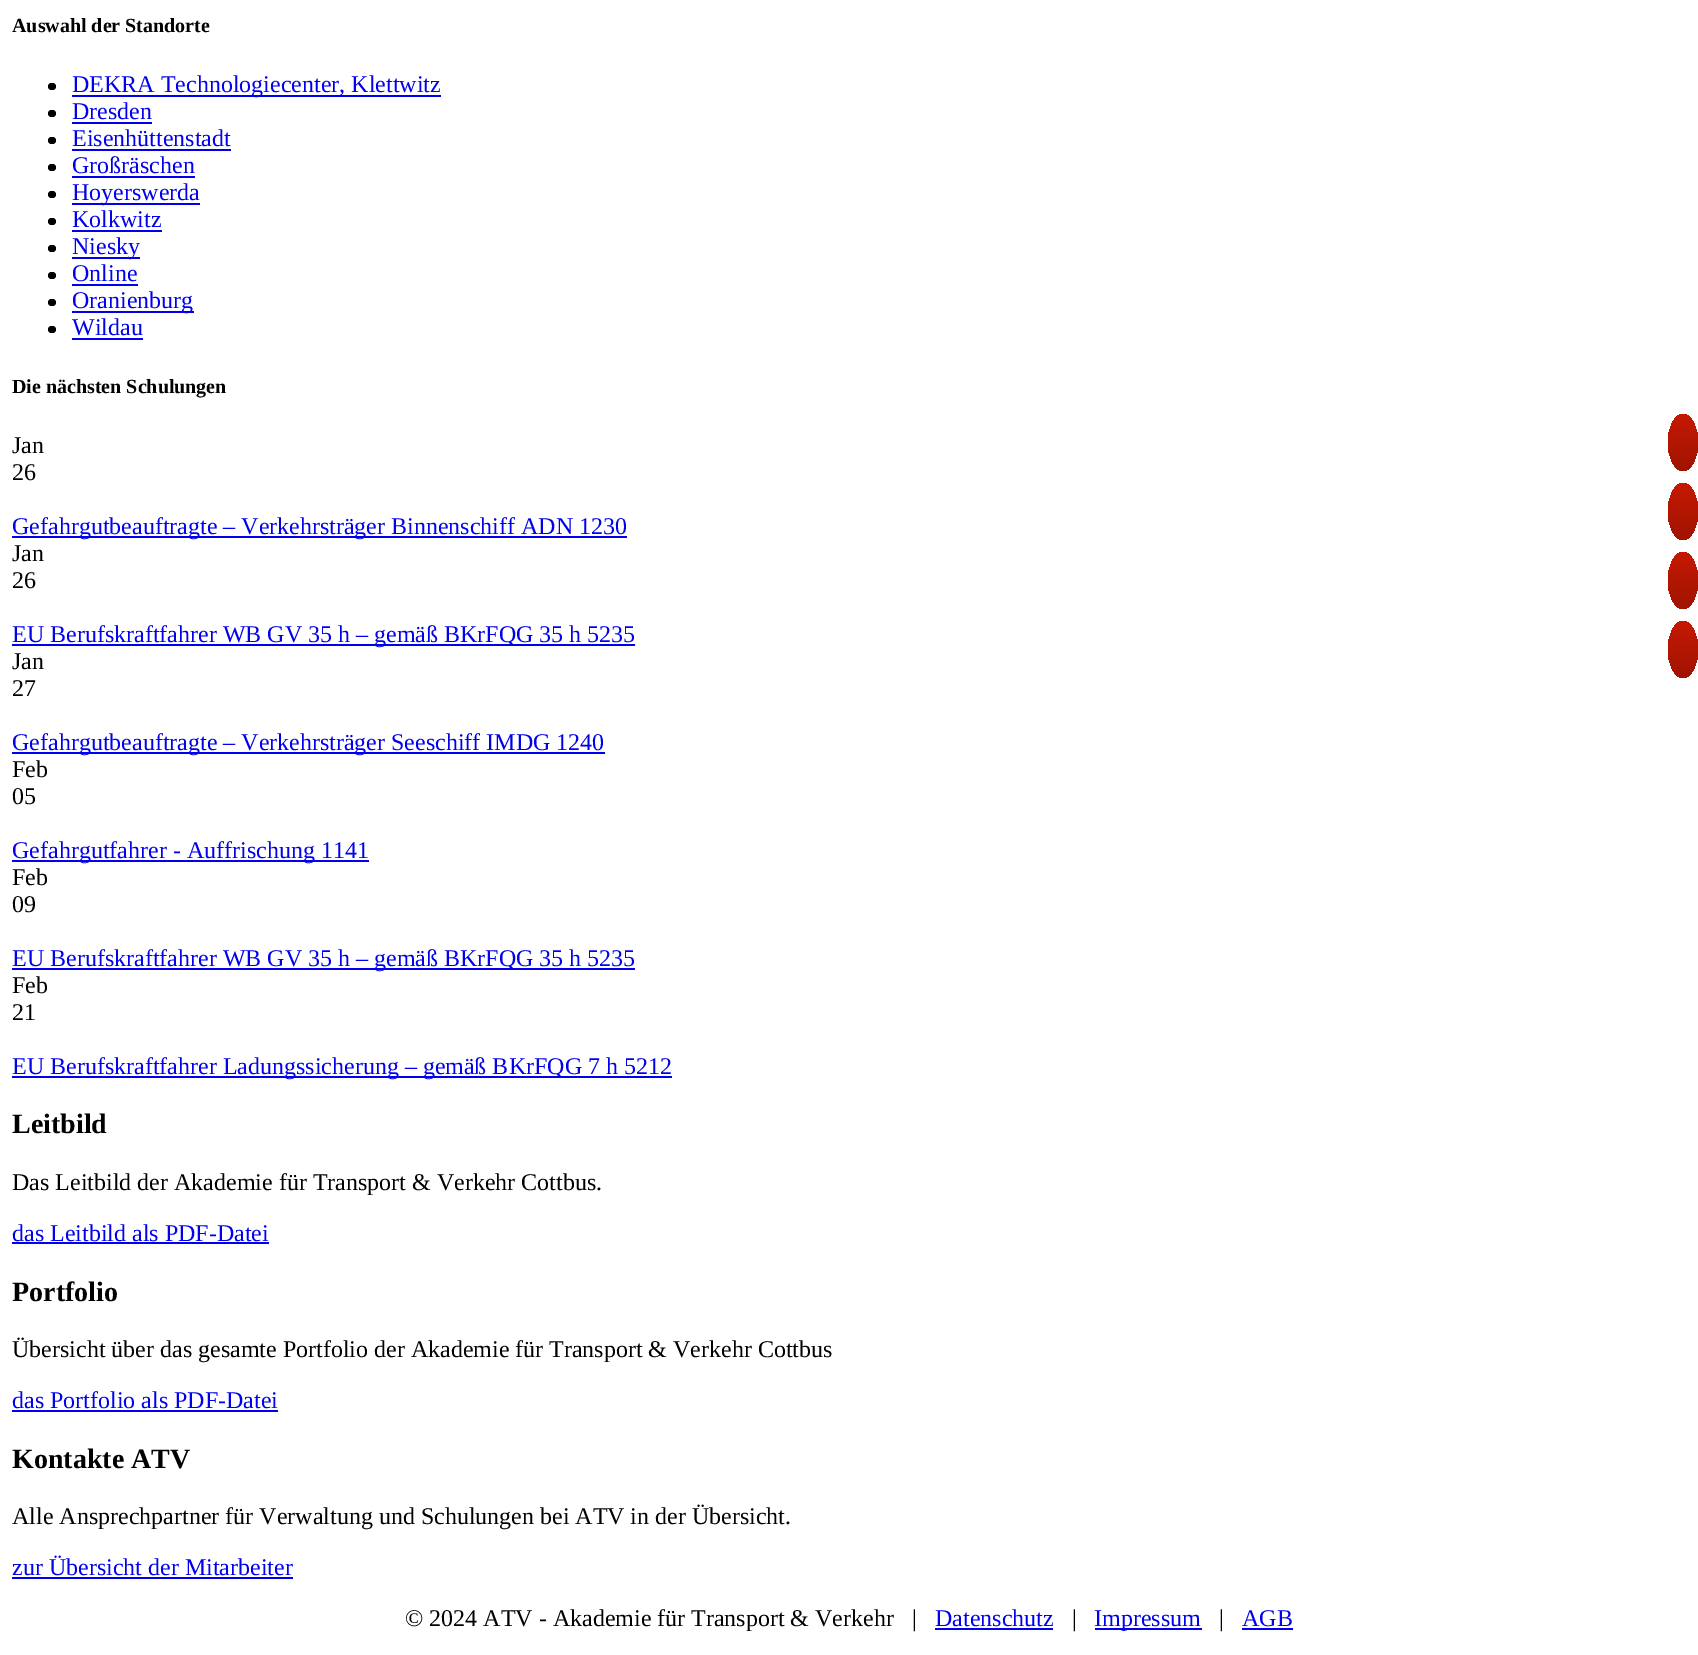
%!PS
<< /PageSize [1698 1655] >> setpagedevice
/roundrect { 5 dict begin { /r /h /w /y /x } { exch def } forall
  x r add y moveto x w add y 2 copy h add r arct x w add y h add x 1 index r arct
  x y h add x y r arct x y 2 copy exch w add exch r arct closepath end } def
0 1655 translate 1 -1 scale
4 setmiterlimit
1 setgray
0 0 1698 1655 rectfill
/LiberationSerif-Bold [20 0 0 -20 0 0] selectfont
0 setgray
12 32 moveto (Auswahl der Standorte) show
48 83 8 7 3.5 roundrect fill
0 0 0.933 setrgbcolor
72 95 369 2 rectfill
/LiberationSerif-Regular [24 0 0 -24 0 0] selectfont
72 92 moveto (DEKRA Technologiecenter, Klettwitz) show
0 setgray
48 110 8 7 3.5 roundrect fill
0 0 0.933 setrgbcolor
72 119 moveto (Dresden) show
72 122 80 2 rectfill
0 setgray
48 137 8 7 3.5 roundrect fill
0 0 0.933 setrgbcolor
72 146 moveto (Eisenhüttenstadt) show
72 149 159 2 rectfill
0 setgray
48 164 8 7 3.5 roundrect fill
0 0 0.933 setrgbcolor
72 173 moveto (Großräschen) show
72 176 123 2 rectfill
0 setgray
48 191 8 7 3.5 roundrect fill
0 0 0.933 setrgbcolor
72 203 128 2 rectfill
72 200 moveto (Hoyerswerda) show
0 setgray
48 218 8 7 3.5 roundrect fill
0 0 0.933 setrgbcolor
72 227 moveto (Kolkwitz) show
72 230 90 2 rectfill
0 setgray
48 245 8 7 3.5 roundrect fill
0 0 0.933 setrgbcolor
72 257 68 2 rectfill
72 254 moveto (Niesky) show
0 setgray
48 272 8 7 3.5 roundrect fill
0 0 0.933 setrgbcolor
72 281 moveto (Online) show
72 284 66 2 rectfill
0 setgray
48 299 8 7 3.5 roundrect fill
0 0 0.933 setrgbcolor
72 311 122 2 rectfill
72 308 moveto (Oranienburg) show
0 setgray
48 326 8 7 3.5 roundrect fill
0 0 0.933 setrgbcolor
72 335 moveto (Wildau) show
72 338 71 2 rectfill
/LiberationSerif-Bold [20 0 0 -20 0 0] selectfont
0 setgray
12 393 moveto (Die nächsten Schulungen) show
/LiberationSerif-Regular [24 0 0 -24 0 0] selectfont
12 453 moveto (Jan) show
12 480 moveto (26) show
0 0 0.933 setrgbcolor
12 536 615 2 rectfill
12 534 moveto (Gefahrgutbeauftragte – Verkehrsträger Binnenschiff ADN 1230) show
0 setgray
12 561 moveto (Jan) show
12 588 moveto (26) show
0 0 0.933 setrgbcolor
12 644 623 2 rectfill
12 642 moveto (EU Berufskraftfahrer WB GV 35 h – gemäß BKrFQG 35 h 5235) show
0 setgray
12 669 moveto (Jan) show
12 696 moveto (27) show
0 0 0.933 setrgbcolor
12 752 593 2 rectfill
12 750 moveto (Gefahrgutbeauftragte – Verkehrsträger Seeschiff IMDG 1240) show
0 setgray
12 777 moveto (Feb) show
12 804 moveto (05) show
0 0 0.933 setrgbcolor
12 860 357 2 rectfill
12 858 moveto (Gefahrgutfahrer - Auffrischung 1141) show
0 setgray
12 885 moveto (Feb) show
12 912 moveto (09) show
0 0 0.933 setrgbcolor
12 968 623 2 rectfill
12 966 moveto (EU Berufskraftfahrer WB GV 35 h – gemäß BKrFQG 35 h 5235) show
0 setgray
12 993 moveto (Feb) show
12 1020 moveto (21) show
0 0 0.933 setrgbcolor
12 1076 660 2 rectfill
12 1074 moveto (EU Berufskraftfahrer Ladungssicherung – gemäß BKrFQG 7 h 5212) show
gsave newpath 1683 414 moveto 1691.5 414 1698 427 1698 442.5 curveto 1698 458 1691.5 471 1683 471 curveto 1674.5 471 1668 458 1668 442.5 curveto 1668 427 1674.5 414 1683 414 curveto closepath clip newpath
<< /ShadingType 2 /ColorSpace /DeviceRGB /Coords [1683 414 1683 471] /Extend [true true] /Function << /FunctionType 2 /Domain [0 1] /C0 [0.776 0.098 0.012] /C1 [0.624 0.078 0.004] /N 1 >> >> shfill grestore
gsave newpath 1683 483 moveto 1691.5 483 1698 496 1698 511.5 curveto 1698 527 1691.5 540 1683 540 curveto 1674.5 540 1668 527 1668 511.5 curveto 1668 496 1674.5 483 1683 483 curveto closepath clip newpath
<< /ShadingType 2 /ColorSpace /DeviceRGB /Coords [1683 483 1683 540] /Extend [true true] /Function << /FunctionType 2 /Domain [0 1] /C0 [0.776 0.098 0.012] /C1 [0.624 0.078 0.004] /N 1 >> >> shfill grestore
gsave newpath 1683 552 moveto 1691.5 552 1698 565 1698 580.5 curveto 1698 596 1691.5 609 1683 609 curveto 1674.5 609 1668 596 1668 580.5 curveto 1668 565 1674.5 552 1683 552 curveto closepath clip newpath
<< /ShadingType 2 /ColorSpace /DeviceRGB /Coords [1683 552 1683 609] /Extend [true true] /Function << /FunctionType 2 /Domain [0 1] /C0 [0.776 0.098 0.012] /C1 [0.624 0.078 0.004] /N 1 >> >> shfill grestore
gsave newpath 1683 621 moveto 1691.5 621 1698 634 1698 649.5 curveto 1698 665 1691.5 678 1683 678 curveto 1674.5 678 1668 665 1668 649.5 curveto 1668 634 1674.5 621 1683 621 curveto closepath clip newpath
<< /ShadingType 2 /ColorSpace /DeviceRGB /Coords [1683 621 1683 678] /Extend [true true] /Function << /FunctionType 2 /Domain [0 1] /C0 [0.776 0.098 0.012] /C1 [0.624 0.078 0.004] /N 1 >> >> shfill grestore
/LiberationSerif-Bold [28 0 0 -28 0 0] selectfont
0 setgray
12 1133 moveto (Leitbild) show
/LiberationSerif-Regular [24 0 0 -24 0 0] selectfont
12 1190 moveto (Das Leitbild der Akademie für Transport & Verkehr Cottbus.) show
0 0 0.933 setrgbcolor
12 1241 moveto (das Leitbild als PDF-Datei) show
12 1242 257 2 rectfill
/LiberationSerif-Bold [28 0 0 -28 0 0] selectfont
0 setgray
12 1301 moveto (Portfolio) show
/LiberationSerif-Regular [24 0 0 -24 0 0] selectfont
12 1357 moveto (Übersicht über das gesamte Portfolio der Akademie für Transport & Verkehr Cottbus) show
0 0 0.933 setrgbcolor
12 1408 moveto (das Portfolio als PDF-Datei) show
12 1410 266 2 rectfill
/LiberationSerif-Bold [28 0 0 -28 0 0] selectfont
0 setgray
12 1468 moveto (Kontakte ATV) show
/LiberationSerif-Regular [24 0 0 -24 0 0] selectfont
12 1524 moveto (Alle Ansprechpartner für Verwaltung und Schulungen bei ATV in der Übersicht.) show
0 0 0.933 setrgbcolor
12 1575 moveto (zur Übersicht der Mitarbeiter) show
12 1577 281 2 rectfill
0 setgray
405 1626 moveto (© 2024 ATV - Akademie für Transport & Verkehr   |) show
0 0 0.933 setrgbcolor
935 1626 moveto (Datenschutz) show
935 1628 118 2 rectfill
0 setgray
1072 1626 moveto (|) show
0 0 0.933 setrgbcolor
1095 1628 107 2 rectfill
1094 1626 moveto (Impressum) show
0 setgray
1219 1626 moveto (|) show
0 0 0.933 setrgbcolor
1242 1626 moveto (AGB) show
1242 1628 51 2 rectfill
showpage
